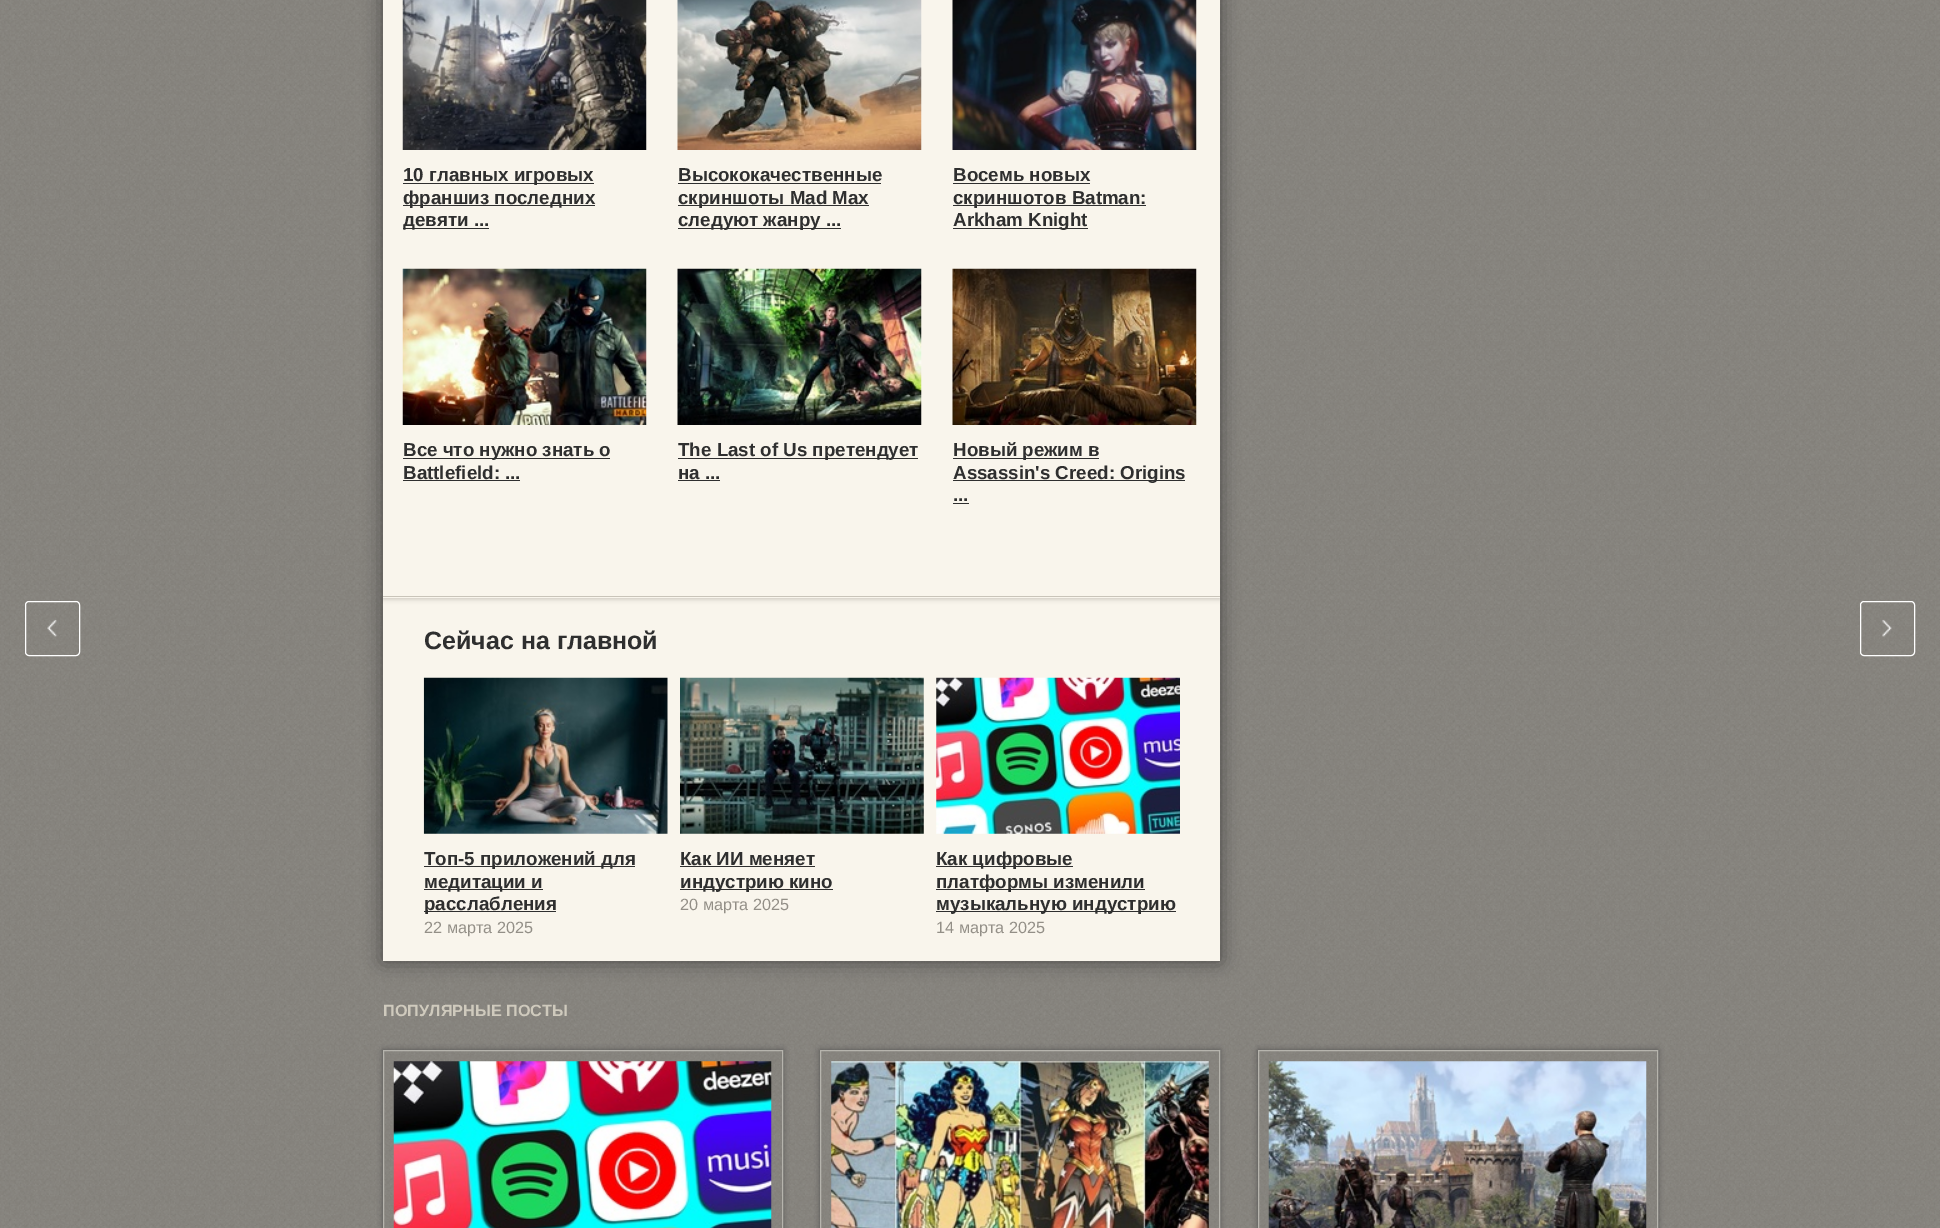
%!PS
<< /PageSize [1940 1228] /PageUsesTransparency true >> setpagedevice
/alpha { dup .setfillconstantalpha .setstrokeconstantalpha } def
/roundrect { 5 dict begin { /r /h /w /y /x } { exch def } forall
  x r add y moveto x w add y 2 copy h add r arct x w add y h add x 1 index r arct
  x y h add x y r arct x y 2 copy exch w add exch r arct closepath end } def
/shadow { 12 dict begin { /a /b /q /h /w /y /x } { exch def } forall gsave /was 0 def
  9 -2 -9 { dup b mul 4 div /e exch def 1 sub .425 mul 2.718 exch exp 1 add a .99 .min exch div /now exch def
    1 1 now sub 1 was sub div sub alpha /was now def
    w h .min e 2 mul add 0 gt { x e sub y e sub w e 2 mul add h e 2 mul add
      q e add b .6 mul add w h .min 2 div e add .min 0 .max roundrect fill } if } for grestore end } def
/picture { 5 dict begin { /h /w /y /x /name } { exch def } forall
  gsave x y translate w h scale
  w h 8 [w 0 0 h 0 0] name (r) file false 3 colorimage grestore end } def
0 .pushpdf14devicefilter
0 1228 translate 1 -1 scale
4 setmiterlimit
1 setgray
0 0 1940 1228 rectfill
(img1.rgb) 0 0 1940 1228 picture
(img2.rgb) 47 619 10 18 picture
25.5 601.5 54 54 3.5 roundrect stroke
0 setgray
383 -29 837 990 0 9.5 0.46 shadow
0.976 0.961 0.925 setrgbcolor
383 0 837 961 rectfill
gsave
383 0 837 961 rectclip
newpath 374 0 moveto 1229 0 lineto 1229 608 lineto 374 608 lineto closepath 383 -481 moveto 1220 -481 lineto 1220 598 lineto 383 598 lineto closepath eoclip newpath
0.788 0.769 0.725 setrgbcolor
383 -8 837 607 0 2.5 1 shadow
grestore
0.788 0.769 0.725 setrgbcolor
383 596 837 1 rectfill
(img3.rgb) 402 0 245 150 picture
0.184 setgray
403 183 191 1 rectfill
/LiberationSans-Bold [18.75 0 0 -18.75 0 0] selectfont
403 181 moveto (10 главных игровых) show
403 205 192 1 rectfill
403 204 moveto (франшиз последних) show
403 228 86 1 rectfill
gsave
403 0 817 544 rectclip
403 226 moveto (девяти ...) show
grestore
(img4.rgb) 677 0 245 150 picture
678 181 moveto (Высококачественные) show
678 183 203 1 rectfill
678 205 191 1 rectfill
678 204 moveto (скриншоты Mad Max) show
678 228 163 1 rectfill
678 226 moveto (следуют жанру ...) show
(img5.rgb) 952 0 245 150 picture
953 181 moveto (Восемь новых) show
953 183 137 1 rectfill
953 205 193 1 rectfill
953 204 moveto (скриншотов Batman:) show
953 228 135 1 rectfill
953 226 moveto (Arkham Knight) show
(img6.rgb) 402 268 245 157 picture
403 458 207 1 rectfill
403 456 moveto (Все что нужно знать о) show
403 479 moveto (Battlefield: ...) show
403 480 117 1 rectfill
(img7.rgb) 677 268 245 157 picture
678 458 240 1 rectfill
678 456 moveto (The Last of Us претендует) show
678 479 moveto (на ...) show
678 480 42 1 rectfill
(img8.rgb) 952 268 245 157 picture
953 458 146 1 rectfill
953 456 moveto (Новый режим в) show
953 480 232 1 rectfill
953 479 moveto (Assassin's Creed: Origins) show
953 501 moveto (...) show
953 503 16 1 rectfill
/LiberationSans-Bold [25 0 0 -25 0 0] selectfont
424 649 moveto (Сейчас на главной) show
(img9.rgb) 423 677 245 157 picture
424 866 211 1 rectfill
/LiberationSans-Bold [18.75 0 0 -18.75 0 0] selectfont
424 865 moveto (Топ-5 приложений для) show
424 889 119 1 rectfill
424 888 moveto (медитации и) show
424 911 132 1 rectfill
424 910 moveto (расслабления) show
/LiberationSans-Regular [16.25 0 0 -16.25 0 0] selectfont
0.576 0.561 0.529 setrgbcolor
424 933 moveto (22 марта 2025) show
(img10.rgb) 680 677 244 157 picture
/LiberationSans-Bold [18.75 0 0 -18.75 0 0] selectfont
0.184 setgray
680 865 moveto (Как ИИ меняет) show
680 866 135 1 rectfill
680 889 153 1 rectfill
680 888 moveto (индустрию кино) show
/LiberationSans-Regular [16.25 0 0 -16.25 0 0] selectfont
0.576 0.561 0.529 setrgbcolor
680 910 moveto (20 марта 2025) show
(img11.rgb) 936 677 244 157 picture
0.184 setgray
936 866 137 1 rectfill
/LiberationSans-Bold [18.75 0 0 -18.75 0 0] selectfont
936 865 moveto (Как цифровые) show
936 889 209 1 rectfill
936 888 moveto (платформы изменили) show
936 911 240 1 rectfill
936 910 moveto (музыкальную индустрию) show
/LiberationSans-Regular [16.25 0 0 -16.25 0 0] selectfont
0.576 0.561 0.529 setrgbcolor
936 933 moveto (14 марта 2025) show
(img12.rgb) 1882 619 10 18 picture
1 setgray
1860.5 601.5 54 54 3.5 roundrect stroke
/LiberationSans-Bold [16.25 0 0 -16.25 0 0] selectfont
0.812 0.792 0.741 setrgbcolor
383 1016 moveto (ПОПУЛЯРНЫЕ ПОСТЫ) show
gsave
newpath 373 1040 moveto 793 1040 lineto 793 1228 lineto 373 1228 lineto closepath 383 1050 moveto 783 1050 lineto 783 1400 lineto 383 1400 lineto closepath eoclip newpath
0.314 setgray
383 1050 400 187 0 3 1 shadow
grestore
0.714 0.706 0.678 setrgbcolor
383.5 1050.5 399 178 rectstroke
(img13.rgb) 393 1061 379 167 picture
gsave
newpath 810 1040 moveto 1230 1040 lineto 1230 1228 lineto 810 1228 lineto closepath 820 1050 moveto 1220 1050 lineto 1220 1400 lineto 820 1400 lineto closepath eoclip newpath
0.314 setgray
820 1050 400 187 0 3 1 shadow
grestore
820.5 1050.5 399 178 rectstroke
(img14.rgb) 831 1061 378 167 picture
gsave
newpath 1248 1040 moveto 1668 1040 lineto 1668 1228 lineto 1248 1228 lineto closepath 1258 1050 moveto 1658 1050 lineto 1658 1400 lineto 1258 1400 lineto closepath eoclip newpath
0.314 setgray
1258 1050 400 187 0 3 1 shadow
grestore
1258.5 1050.5 399 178 rectstroke
(img15.rgb) 1268 1061 379 167 picture
.poppdf14devicefilter showpage
